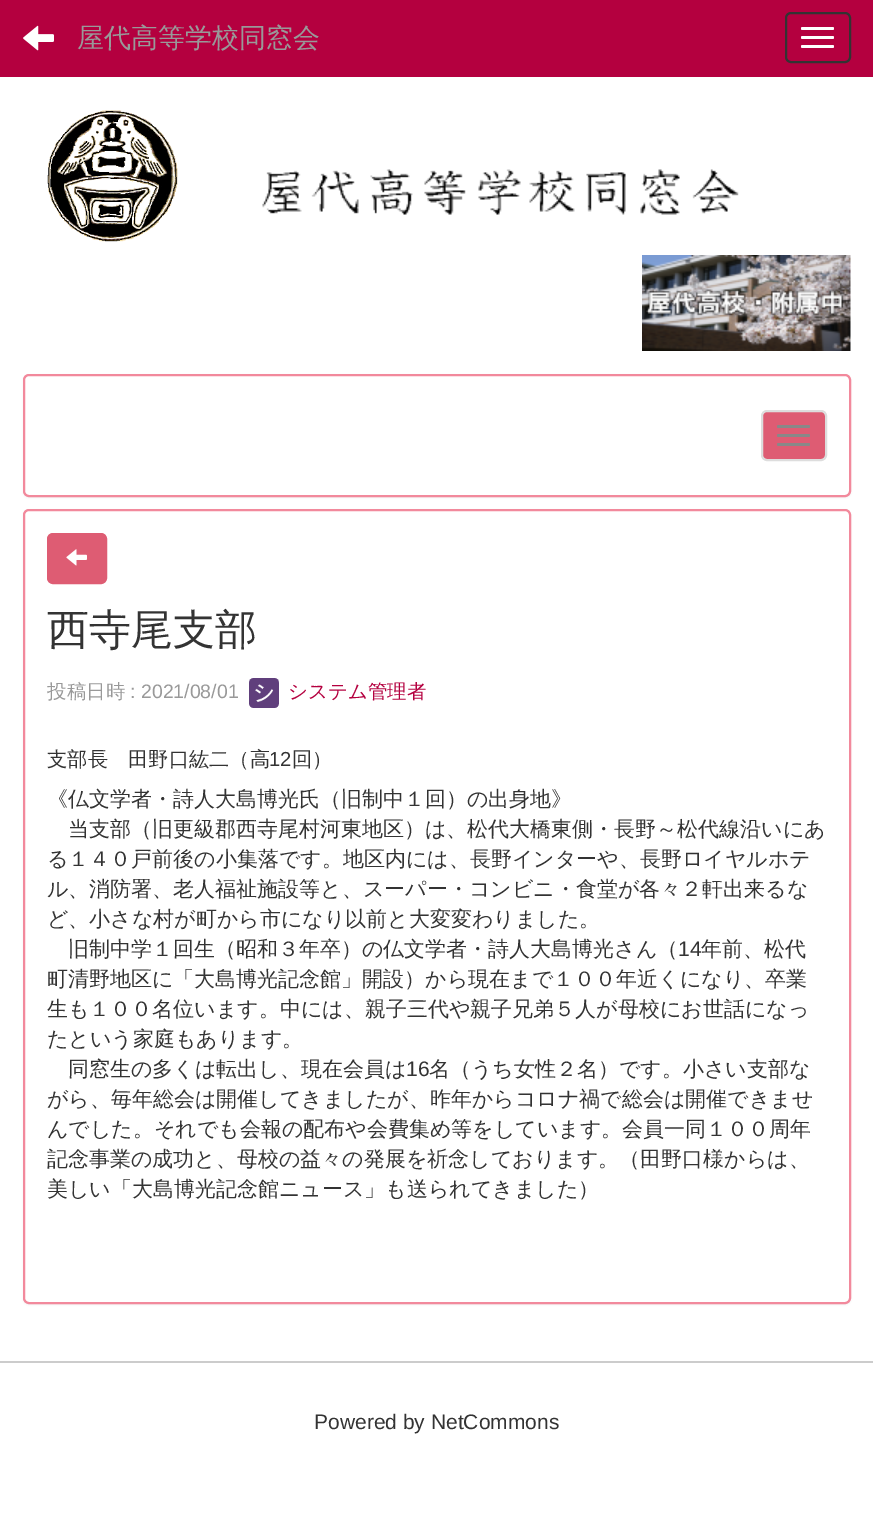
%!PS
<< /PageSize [873 1538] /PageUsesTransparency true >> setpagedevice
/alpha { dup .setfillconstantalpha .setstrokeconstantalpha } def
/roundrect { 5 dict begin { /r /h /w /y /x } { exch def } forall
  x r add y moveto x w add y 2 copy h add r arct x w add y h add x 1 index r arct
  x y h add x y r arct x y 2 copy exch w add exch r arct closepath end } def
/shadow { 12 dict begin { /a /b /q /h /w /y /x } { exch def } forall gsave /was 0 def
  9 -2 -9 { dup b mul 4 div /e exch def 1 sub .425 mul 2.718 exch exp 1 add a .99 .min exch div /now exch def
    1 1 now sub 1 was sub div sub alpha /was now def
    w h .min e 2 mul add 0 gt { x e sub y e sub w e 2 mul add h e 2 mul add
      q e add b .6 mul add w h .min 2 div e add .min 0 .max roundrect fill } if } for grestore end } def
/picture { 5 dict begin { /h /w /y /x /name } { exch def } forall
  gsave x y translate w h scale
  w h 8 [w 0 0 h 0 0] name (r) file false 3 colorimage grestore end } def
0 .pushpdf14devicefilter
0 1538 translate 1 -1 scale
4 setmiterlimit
1 setgray
0 0 873 1538 rectfill
0.706 0 0.247 setrgbcolor
0 0 873 77 rectfill
(img1.rgb) 23 25 31 26 picture
/WenQuanYiZenHei-Medium [27 0 0 -27 0 0] selectfont
0.6 setgray
77 47 moveto (屋代高等学校同窓会) show
0.2 setgray
2 setlinewidth
786 13 64 49 5 roundrect stroke
1 setgray
801 27 33 3 1.5 roundrect fill
801 36 33 3 1.5 roundrect fill
801 45 33 3 1.5 roundrect fill
(img2.rgb) 47 110 131 132 picture
(img3.rgb) 262 169 477 46 picture
(img4.rgb) 642 255 209 96 picture
0 setgray
23 375 828 123 6 1 0.05 shadow
1 setgray
24 375 826 121 5 roundrect gsave fill grestore
0.949 0.537 0.612 setrgbcolor
stroke
0.871 0.361 0.451 setrgbcolor
762 411 64 49 5 roundrect gsave fill grestore
0.867 setgray
stroke
0.533 setgray
777 425 33 3 1.5 roundrect fill
777 434 33 3 1.5 roundrect fill
777 443 33 3 1.5 roundrect fill
0 setgray
23 510 828 795 6 1 0.05 shadow
1 setgray
24 510 826 793 5 roundrect gsave fill grestore
0.949 0.537 0.612 setrgbcolor
stroke
0.871 0.361 0.451 setrgbcolor
48 534 58 49 5 roundrect gsave fill grestore
stroke
(img5.rgb) 66 549 21 17 picture
/WenQuanYiZenHei-Medium [42 0 0 -42 0 0] selectfont
0.2 setgray
47 644 moveto (西寺尾支部) show
/WenQuanYiZenHei-Medium [19.5 0 0 -19.5 0 0] selectfont
0.6 setgray
47 698 moveto (投稿日時) show
/LiberationSans-Regular [19.5 0 0 -19.5 0 0] selectfont
130 698 moveto (: 2021/08/01) show
(img6.rgb) 249 678 30 30 picture
/WenQuanYiZenHei-Medium [19.5 0 0 -19.5 0 0] selectfont
0.706 0 0.247 setrgbcolor
288 698 moveto (システム管理者) show
/WenQuanYiZenHei-Medium [20.25 0 0 -20.25 0 0] selectfont
0.2 setgray
47 766 moveto (支部長　田野口紘二（高) show
/LiberationSans-Regular [20.25 0 0 -20.25 0 0] selectfont
269 766 moveto (12) show
/WenQuanYiZenHei-Medium [20.25 0 0 -20.25 0 0] selectfont
292 766 moveto (回）) show
/WenQuanYiZenHei-Medium [21 0 0 -21 0 0] selectfont
47 806 moveto (《仏文学者・詩人大島博光氏（旧制中１回）の出身地》) show
68 836 moveto (当支部（旧更級郡西寺尾村河東地区）は、松代大橋東側・長野～松代線沿いにあ) show
47 866 moveto (る１４０戸前後の小集落です。地区内には、長野インターや、長野ロイヤルホテ) show
47 896 moveto (ル、消防署、老人福祉施設等と、スーパー・コンビニ・食堂が各々２軒出来るな) show
47 926 moveto (ど、小さな村が町から市になり以前と大変変わりました。) show
68 956 moveto (旧制中学１回生（昭和３年卒）の仏文学者・詩人大島博光さん（) show
/LiberationSans-Regular [21 0 0 -21 0 0] selectfont
678 956 moveto (14) show
/WenQuanYiZenHei-Medium [21 0 0 -21 0 0] selectfont
701 956 moveto (年前、松代) show
47 986 moveto (町清野地区に「大島博光記念館」開設）から現在まで１００年近くになり、卒業) show
47 1016 moveto (生も１００名位います。中には、親子三代や親子兄弟５人が母校にお世話になっ) show
47 1046 moveto (たという家庭もあります。) show
68 1076 moveto (同窓生の多くは転出し、現在会員は) show
/LiberationSans-Regular [21 0 0 -21 0 0] selectfont
406 1076 moveto (16) show
/WenQuanYiZenHei-Medium [21 0 0 -21 0 0] selectfont
429 1076 moveto (名（うち女性２名）です。小さい支部な) show
47 1106 moveto (がら、毎年総会は開催してきましたが、昨年からコロナ禍で総会は開催できませ) show
47 1136 moveto (んでした。それでも会報の配布や会費集め等をしています。会員一同１００周年) show
47 1166 moveto (記念事業の成功と、母校の益々の発展を祈念しております。（田野口様からは、) show
47 1196 moveto (美しい「大島博光記念館ニュース」も送られてきました）) show
0.8 setgray
0 1361 873 2 rectfill
/LiberationSans-Regular [21 0 0 -21 0 0] selectfont
0.2 setgray
314 1429 moveto (Powered by NetCommons) show
.poppdf14devicefilter showpage
